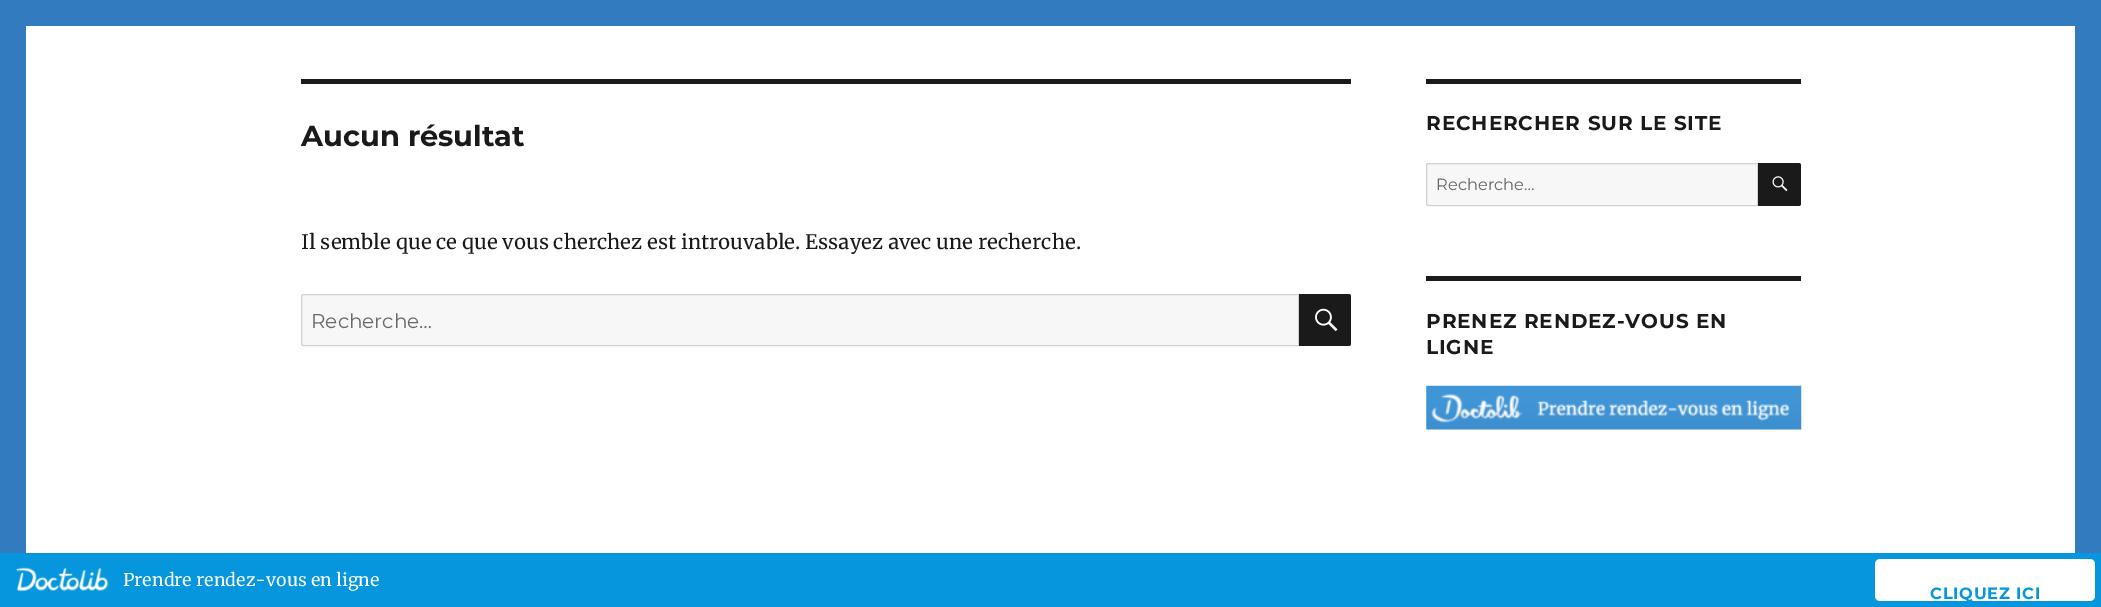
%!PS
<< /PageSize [2101 607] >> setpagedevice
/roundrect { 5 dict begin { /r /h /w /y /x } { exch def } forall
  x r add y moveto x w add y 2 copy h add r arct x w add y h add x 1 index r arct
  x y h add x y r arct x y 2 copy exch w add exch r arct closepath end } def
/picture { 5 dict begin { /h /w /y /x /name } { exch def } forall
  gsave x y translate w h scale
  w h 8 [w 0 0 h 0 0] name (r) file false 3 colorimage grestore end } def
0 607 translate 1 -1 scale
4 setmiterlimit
0.2 0.482 0.749 setrgbcolor
0 0 2101 607 rectfill
1 setgray
26 26 2049 527 rectfill
0.102 setgray
1426 79 375 5 rectfill
/Montserrat-Thin [20 0 0 -20 0 0] selectfont
1426 130 moveto 0.9 0 (RECHERCHER SUR LE SITE) ashow
0.969 setgray
newpath 1428.5 163.5 moveto 1757.5 163.5 lineto 1757.5 205.5 lineto 1428.5 205.5 lineto 1427.5 205.5 1426.5 204.5 1426.5 203.5 curveto 1426.5 165.5 lineto 1426.5 164.5 1427.5 163.5 1428.5 163.5 curveto closepath gsave fill grestore
0.82 setgray
stroke
/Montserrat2-Thin [16.25 0 0 -16.25 0 0] selectfont
0.408 setgray
1436 190 moveto (Recherche…) show
0.102 setgray
newpath 1758 163 moveto 1798.5 163 lineto 1800 163 1801 164 1801 165.5 curveto 1801 203.5 lineto 1801 205 1800 206 1798.5 206 curveto 1758 206 lineto closepath fill
(img1.rgb) 1772 176 16 16 picture
1426 276 375 5 rectfill
/Montserrat-Thin [20 0 0 -20 0 0] selectfont
1426 328 moveto 0.9 0 (PRENEZ RENDEZ-VOUS EN) ashow
1426 354 moveto 0.9 0 (LIGNE) ashow
(img2.rgb) 1426 385 376 45 picture
0.02 0.588 0.871 setrgbcolor
0 553 2101 54 rectfill
(img3.rgb) 16 567 93 25 picture
/Merriweather-Regular [17.5 0 0 -17.5 0 0] selectfont
1 setgray
123 586 moveto (Prendre rendez-vous en ligne) show
1875 559 220 42 5 roundrect fill
/Montserrat-Thin [16.25 0 0 -16.25 0 0] selectfont
0.02 0.588 0.871 setrgbcolor
1930 599 moveto 0.75 0 (CLIQUEZ ICI) ashow
0.102 setgray
301 79 1050 5 rectfill
/Montserrat-Thin [28.75 0 0 -28.75 0 0] selectfont
301 146 moveto (Aucun résultat) show
/Merriweather-Regular [20 0 0 -20 0 0] selectfont
301 249 moveto (Il semble que ce que vous cherchez est introuvable. Essayez avec une recherche.) show
0.969 setgray
newpath 303.5 294.5 moveto 1298.5 294.5 lineto 1298.5 345.5 lineto 303.5 345.5 lineto 302.5 345.5 301.5 344.5 301.5 343.5 curveto 301.5 296.5 lineto 301.5 295.5 302.5 294.5 303.5 294.5 curveto closepath gsave fill grestore
0.82 setgray
stroke
/Montserrat2-Thin [20 0 0 -20 0 0] selectfont
0.408 setgray
311 328 moveto (Recherche…) show
0.102 setgray
newpath 1299 294 moveto 1348.5 294 lineto 1350 294 1351 295 1351 296.5 curveto 1351 343.5 lineto 1351 345 1350 346 1348.5 346 curveto 1299 346 lineto closepath fill
(img4.rgb) 1315 308 23 24 picture
showpage
